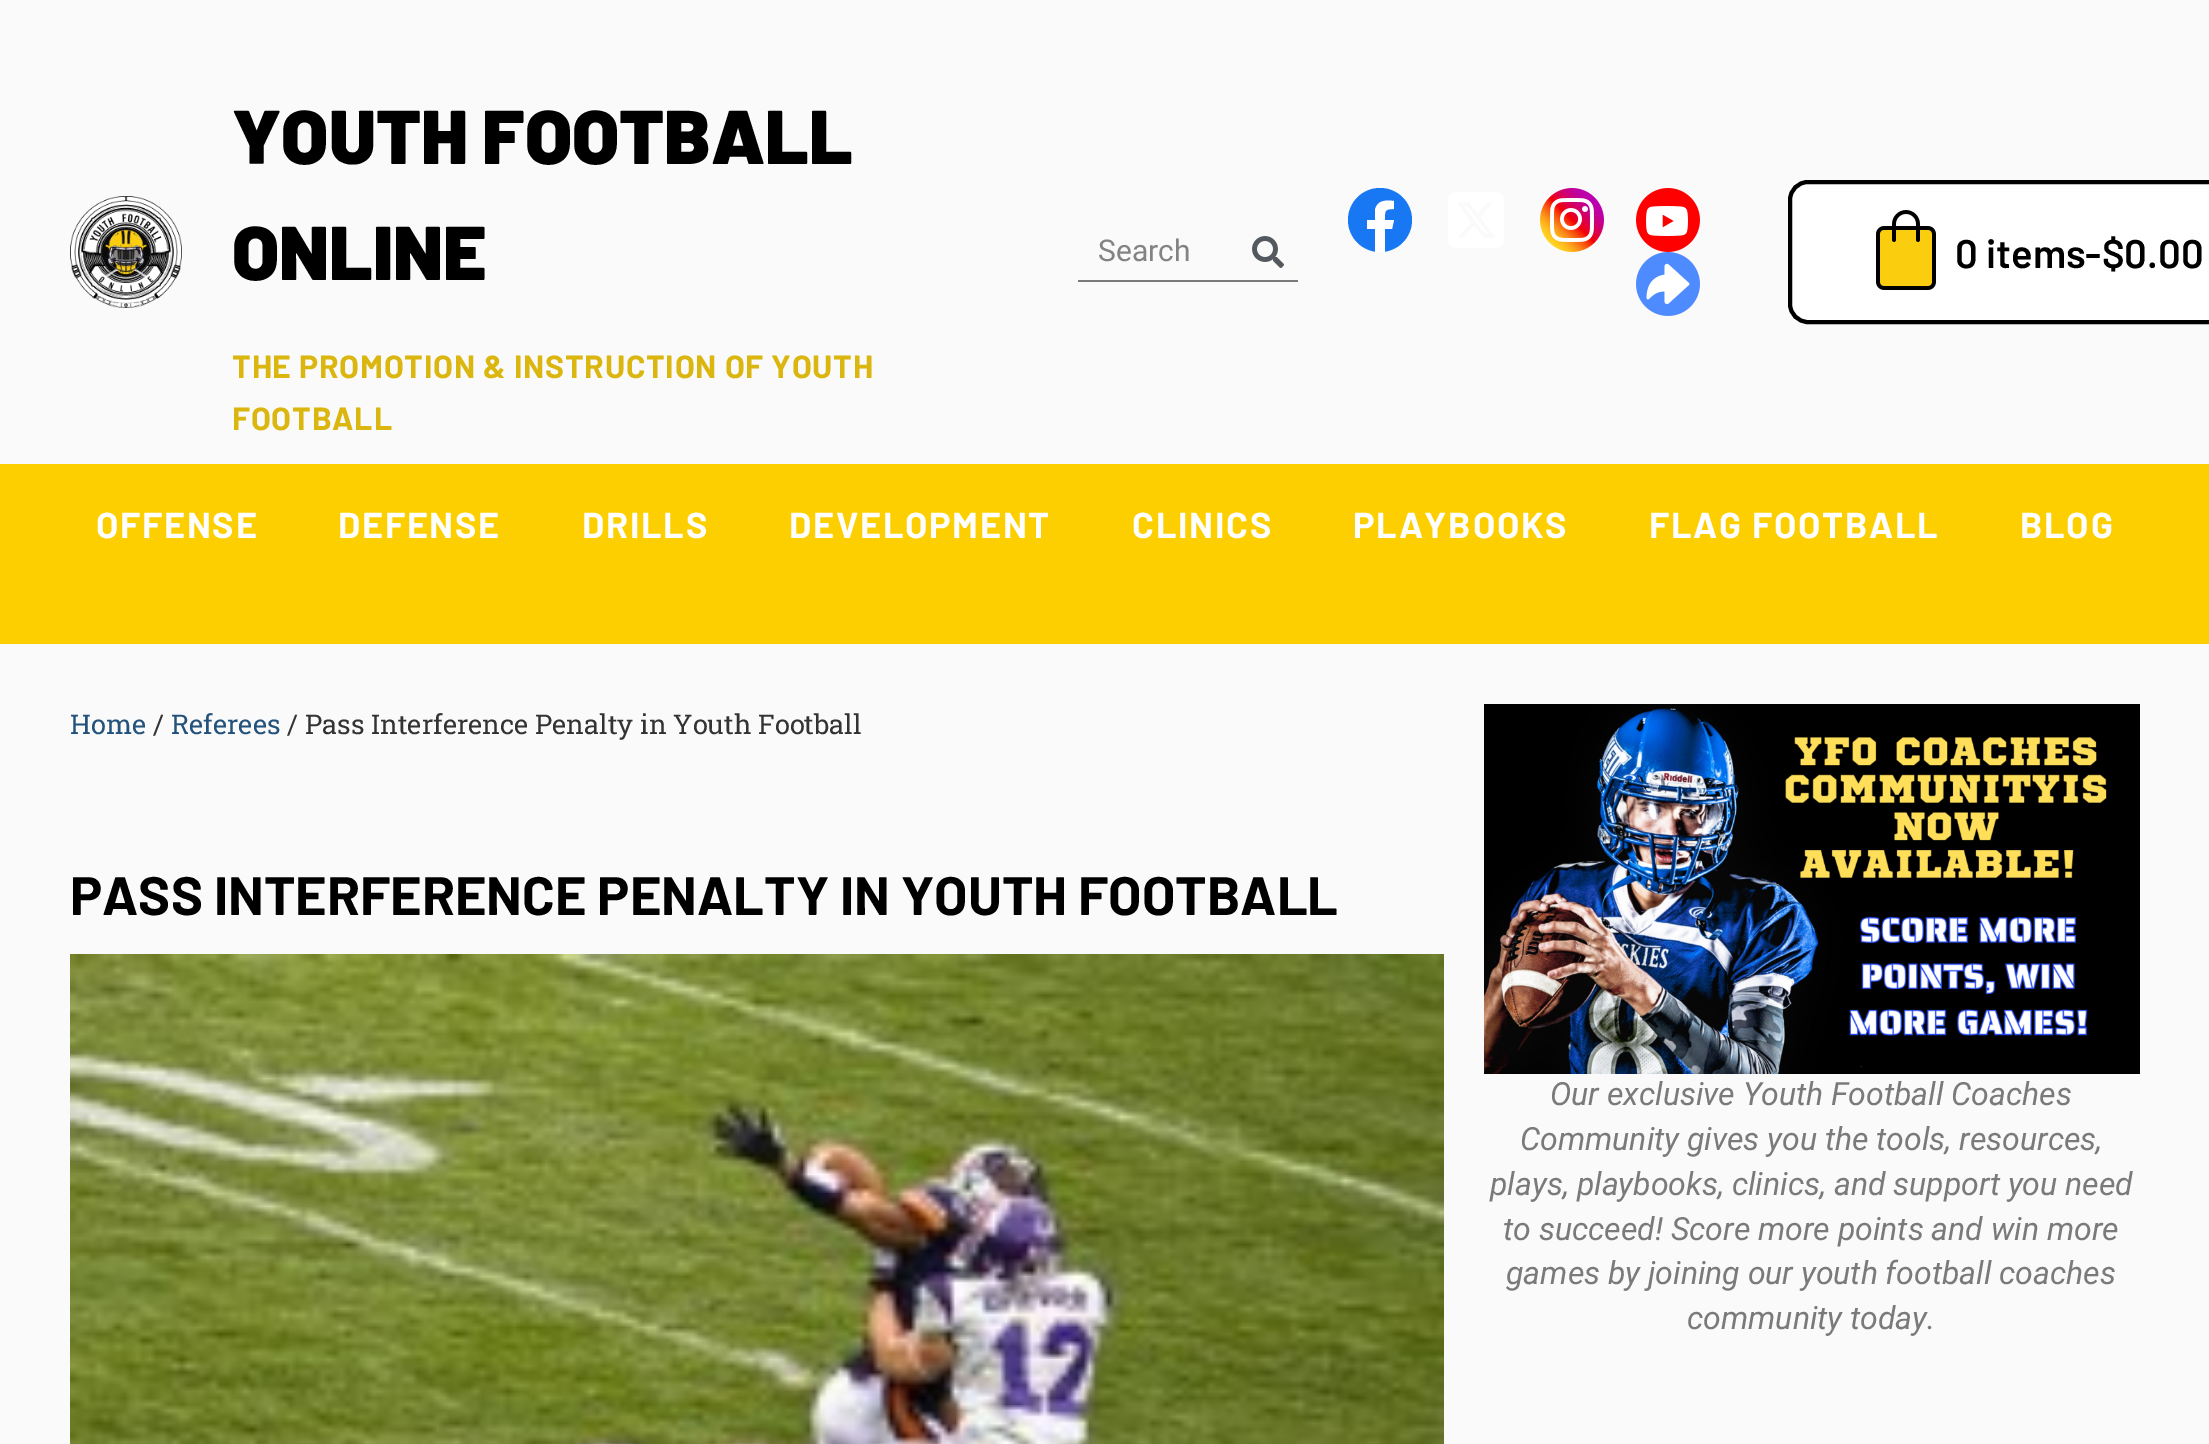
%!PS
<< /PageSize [2209 1444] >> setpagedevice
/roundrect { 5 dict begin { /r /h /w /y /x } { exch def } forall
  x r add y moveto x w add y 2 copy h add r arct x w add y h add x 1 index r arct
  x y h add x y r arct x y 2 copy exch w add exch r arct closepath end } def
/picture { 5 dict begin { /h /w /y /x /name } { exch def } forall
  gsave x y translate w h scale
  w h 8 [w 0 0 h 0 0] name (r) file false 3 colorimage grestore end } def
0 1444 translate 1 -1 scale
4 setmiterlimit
0.98 setgray
0 0 2209 1444 rectfill
(img1.rgb) 70 196 112 112 picture
/Barlow-Black [76 0 0 -76 0 0] selectfont
0 setgray
232 164 moveto (YOUTH FOOTBALL) show
232 280 moveto (ONLINE) show
/Barlow-Bold [32 0 0 -32 0 0] selectfont
0.859 0.714 0.059 setrgbcolor
232 378 moveto 0.8 0 (THE PROMOTION & INSTRUCTION OF YOUTH) ashow
232 430 moveto 0.8 0 (FOOTBALL) ashow
0.478 setgray
1078 280 220 2 rectfill
/Roboto-Regular [30 0 0 -30 0 0] selectfont
0.514 setgray
1098 261 moveto (Search) show
(img2.rgb) 1252 236 32 32 picture
0.094 0.467 0.949 setrgbcolor
newpath 1380 220 32 0 360 arc closepath fill
1 setgray
newpath 1392 229 moveto 1394 220 lineto 1385 220 lineto 1385 211 1384 209 1394 209 curveto 1394 201 lineto 1386 200 1377 200 1375 210 curveto 1375 220 lineto 1367 220 lineto 1367 229 lineto 1375 229 lineto 1375 252 lineto 1378 252 1382 252 1385 252 curveto 1385 229 lineto closepath fill
(img3.rgb) 1448 192 56 56 picture
(img4.rgb) 1540 188 64 64 picture
(img5.rgb) 1636 188 64 64 picture
(img6.rgb) 1636 252 64 64 picture
1790 182 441 140 18 roundrect gsave fill grestore
0 setgray
4 setlinewidth
stroke
(img7.rgb) 1876 210 60 80 picture
/Barlow-SemiBold [40 0 0 -40 0 0] selectfont
1955 268 moveto (0 items-$0.00) show
0.992 0.812 0 setrgbcolor
0 464 2209 180 rectfill
/Barlow-Bold [36 0 0 -36 0 0] selectfont
1 setgray
96 538 moveto 1.75 0 (OFFENSE) ashow
338 538 moveto 1.75 0 (DEFENSE) ashow
582 538 moveto 1.75 0 (DRILLS) ashow
789 538 moveto 1.75 0 (DEVELOPMENT) ashow
1132 538 moveto 1.75 0 (CLINICS) ashow
1353 538 moveto 1.75 0 (PLAYBOOKS) ashow
1649 538 moveto 1.75 0 (FLAG FOOTBALL) ashow
2020 538 moveto 1.75 0 (BLOG) ashow
/RobotoSlab-Regular [27.2 0 0 -27.2 0 0] selectfont
0.137 0.322 0.486 setrgbcolor
70 734 moveto (Home) show
0.2 setgray
153 734 moveto (/) show
0.137 0.322 0.486 setrgbcolor
171 734 moveto (Referees) show
0.2 setgray
287 734 moveto (/ Pass Interference Penalty in Youth Football) show
/Barlow-Bold [54 0 0 -54 0 0] selectfont
0 setgray
70 915 moveto (PASS INTERFERENCE PENALTY IN YOUTH FOOTBALL) show
(img8.rgb) 70 954 1374 490 picture
(img9.rgb) 1484 704 656 370 picture
/Roboto-Italic [32 0 0 -32 0 0] selectfont
0.478 setgray
1550 1105 moveto (Our exclusive Youth Football Coaches) show
1520 1150 moveto (Community gives you the tools, resources,) show
1490 1195 moveto (plays, playbooks, clinics, and support you need) show
1503 1240 moveto (to succeed! Score more points and win more) show
1506 1284 moveto (games by joining our youth football coaches) show
1687 1329 moveto (community today.) show
showpage
